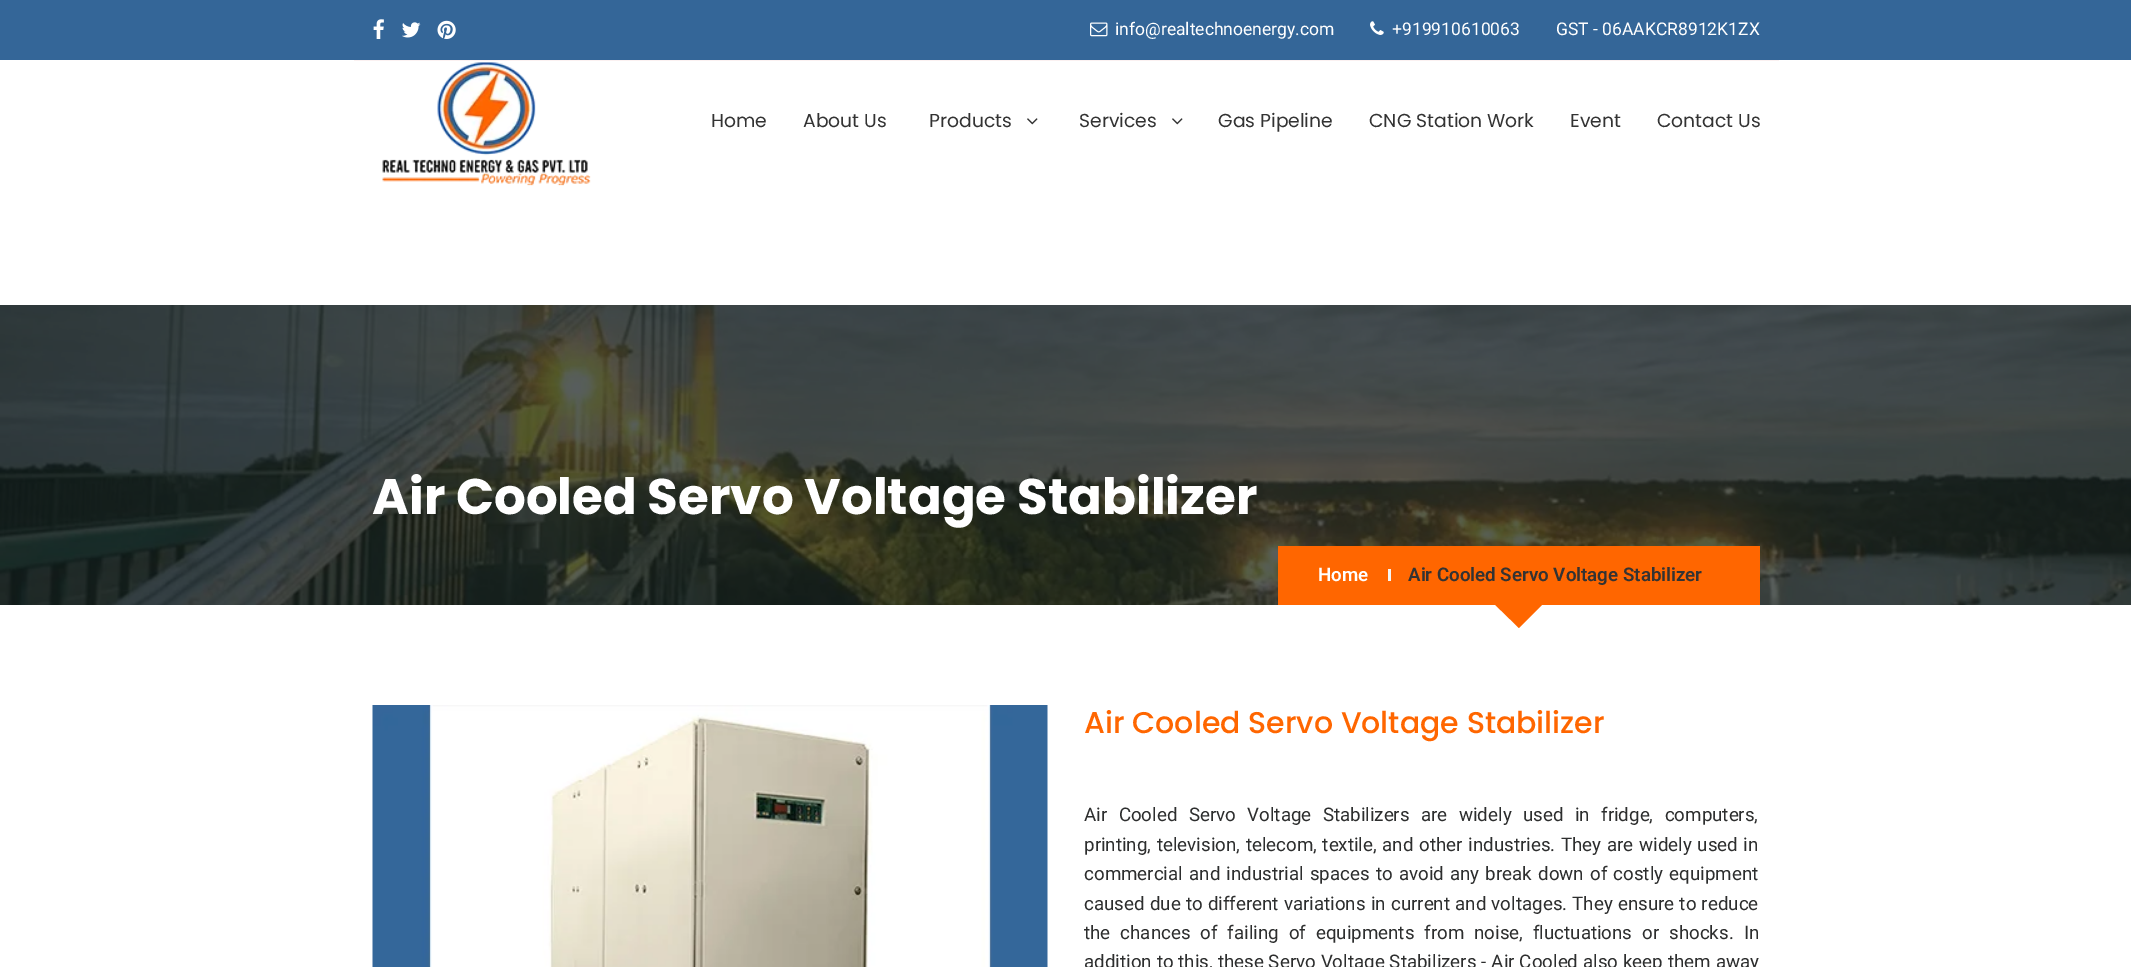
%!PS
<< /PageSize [2131 967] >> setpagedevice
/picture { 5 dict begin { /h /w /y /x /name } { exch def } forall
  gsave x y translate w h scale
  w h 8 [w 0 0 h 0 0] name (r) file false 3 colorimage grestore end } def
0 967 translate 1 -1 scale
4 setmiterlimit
1 setgray
0 0 2131 967 rectfill
0.204 0.4 0.596 setrgbcolor
0 0 2131 60 rectfill
(img1.rgb) 373 19 11 20 picture
(img2.rgb) 402 22 19 16 picture
(img3.rgb) 437 20 19 19 picture
(img4.rgb) 1090 22 18 15 picture
/Roboto-Regular [17.5 0 0 -17.5 0 0] selectfont
1 setgray
1115 35 moveto (info@realtechnoenergy.com) show
(img5.rgb) 1370 21 14 14 picture
1392 35 moveto (+919910610063) show
1556 35 moveto (GST - 06AAKCR8912K1ZX) show
0.984 0.945 0.945 setrgbcolor
354 60 1425 1 rectfill
(img6.rgb) 382 62 209 124 picture
/Poppins-Regular [18.75 0 0 -18.75 0 0] selectfont
0.2 setgray
711 127 moveto (Home) show
803 127 moveto (About Us) show
929 127 moveto (Products) show
(img7.rgb) 1027 118 11 7 picture
1079 127 moveto (Services) show
(img7.rgb) 1172 118 11 7 picture
1218 127 moveto (Gas Pipeline) show
1369 127 moveto (CNG Station Work) show
1570 127 moveto (Event) show
1657 127 moveto (Contact Us) show
1 0.4 0 setrgbcolor
newpath 1519 557 moveto 1554 593 lineto 1519 628 lineto 1483 593 lineto closepath fill
(img8.rgb) 0 305 2131 300 picture
/Poppins-Bold [50 0 0 -50 0 0] selectfont
1 setgray
372 514 moveto (Air Cooled Servo Voltage Stabilizer) show
1 0.4 0 setrgbcolor
1278 546 482 59 rectfill
/Roboto-SemiBold [18.75 0 0 -18.75 0 0] selectfont
1 setgray
1318 581 moveto (Home) show
0.957 setgray
1388 569 3 12 rectfill
0.2 setgray
1408 581 moveto (Air Cooled Servo Voltage Stabilizer) show
(img9.rgb) 372 705 676 262 picture
/Poppins-Medium [30 0 0 -30 0 0] selectfont
1 0.4 0 setrgbcolor
1084 733 moveto (Air Cooled Servo Voltage Stabilizer) show
/Roboto-Regular [18.75 0 0 -18.75 0 0] selectfont
0.176 0.18 0.18 setrgbcolor
1084 821 moveto 6.75 0 32 (Air Cooled Servo Voltage Stabilizers are widely used in fridge, computers,) widthshow
1084 851 moveto 1 0 32 (printing, television, telecom, textile, and other industries. They are widely used in) widthshow
1084 880 moveto 1.5 0 32 (commercial and industrial spaces to avoid any break down of costly equipment) widthshow
1084 910 moveto 0.5 0 32 (caused due to different variations in current and voltages. They ensure to reduce) widthshow
1084 939 moveto 5.25 0 32 (the chances of failing of equipments from noise, fluctuations or shocks. In) widthshow
1084 968 moveto 0.25 0 32 (addition to this, these Servo Voltage Stabilizers - Air Cooled also keep them away) widthshow
showpage
